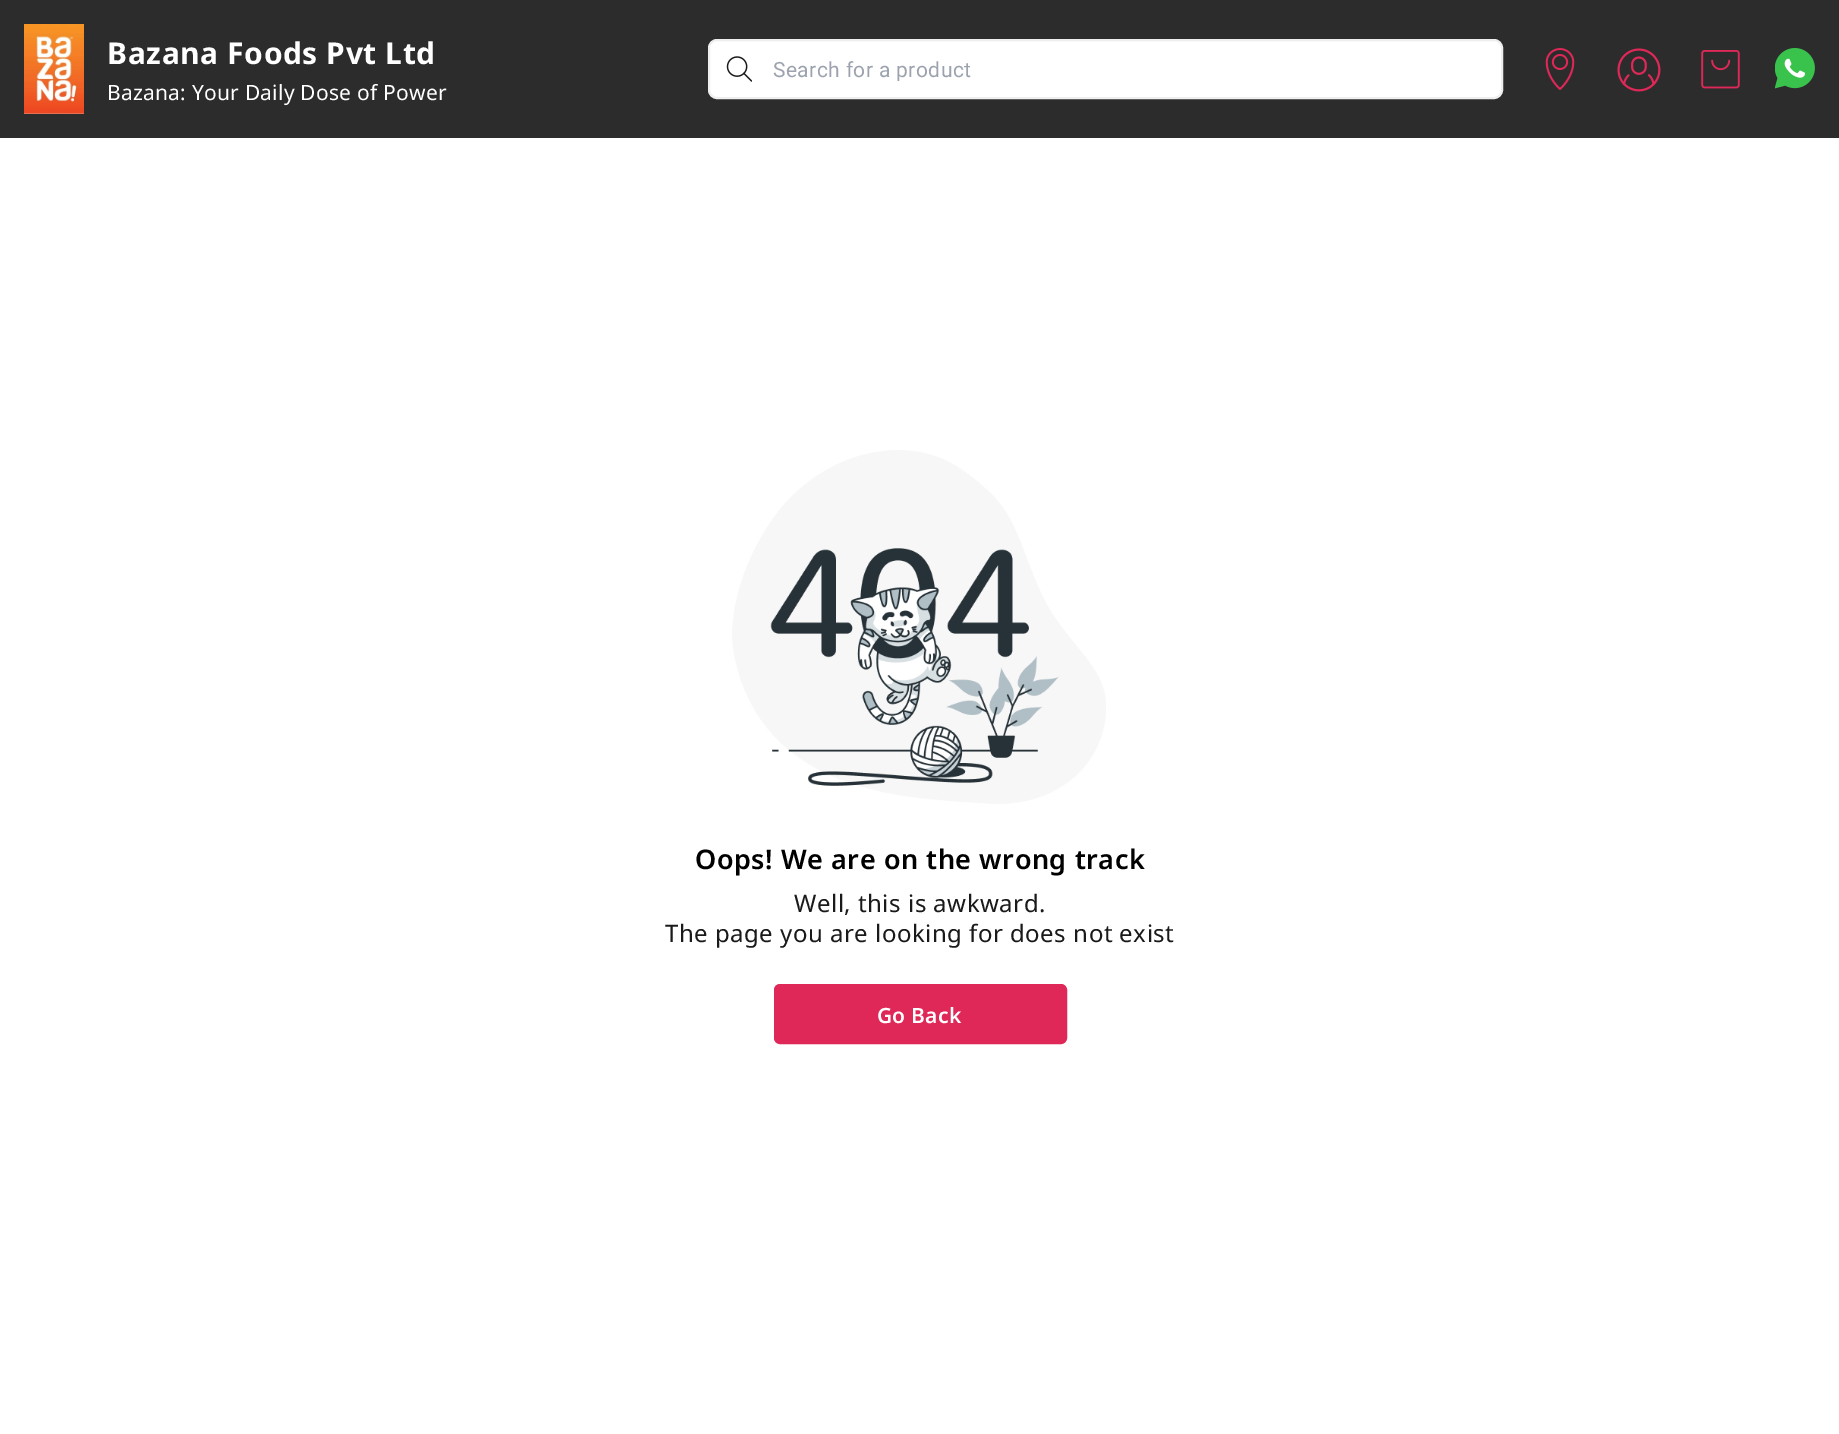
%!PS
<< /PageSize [1839 1434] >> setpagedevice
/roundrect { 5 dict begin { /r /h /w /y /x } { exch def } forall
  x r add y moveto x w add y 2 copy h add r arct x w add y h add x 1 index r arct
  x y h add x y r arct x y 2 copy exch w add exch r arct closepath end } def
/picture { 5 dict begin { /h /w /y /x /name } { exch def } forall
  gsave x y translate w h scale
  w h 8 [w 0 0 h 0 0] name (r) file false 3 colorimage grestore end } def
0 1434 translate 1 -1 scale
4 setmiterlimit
1 setgray
0 0 1839 1434 rectfill
0.173 setgray
0 0 1839 138 rectfill
(img1.rgb) 24 24 60 90 picture
/NotoSans-Bold [30 0 0 -30 0 0] selectfont
1 setgray
107 64 moveto 0.6 0 (Bazana Foods Pvt Ltd) ashow
/NotoSans-Regular [21 0 0 -21 0 0] selectfont
107 100 moveto 0.25 0 (Bazana: Your Daily Dose of Power) ashow
709 40 793 58 8 roundrect gsave fill grestore
0.933 setgray
2 setlinewidth
stroke
(img2.rgb) 726 56 26 26 picture
gsave
773 57 666 24 rectclip
/Roboto-Regular [21 0 0 -21 0 0] selectfont
0.612 0.639 0.686 setrgbcolor
773 77 moveto 0.4 0 (Search for a product) ashow
grestore
(img3.rgb) 1545 48 30 42 picture
(img4.rgb) 1617 48 44 44 picture
(img5.rgb) 1701 50 39 39 picture
(img6.rgb) 1775 48 40 41 picture
(img7.rgb) 732 450 374 354 picture
/NotoSans-SemiBold [27 0 0 -27 0 0] selectfont
0 setgray
695 869 moveto 0.55 0 (Oops! We are on the wrong track) ashow
/NotoSans-Regular [24 0 0 -24 0 0] selectfont
0.102 setgray
794 912 moveto 0.5 0 (Well, this is awkward.) ashow
665 942 moveto 0.5 0 (The page you are looking for does not exist) ashow
0.878 0.157 0.345 setrgbcolor
775 985 291 58 5 roundrect gsave fill grestore
stroke
/NotoSans-SemiBold [21 0 0 -21 0 0] selectfont
1 setgray
877 1023 moveto 0.25 0 (Go Back) ashow
showpage
